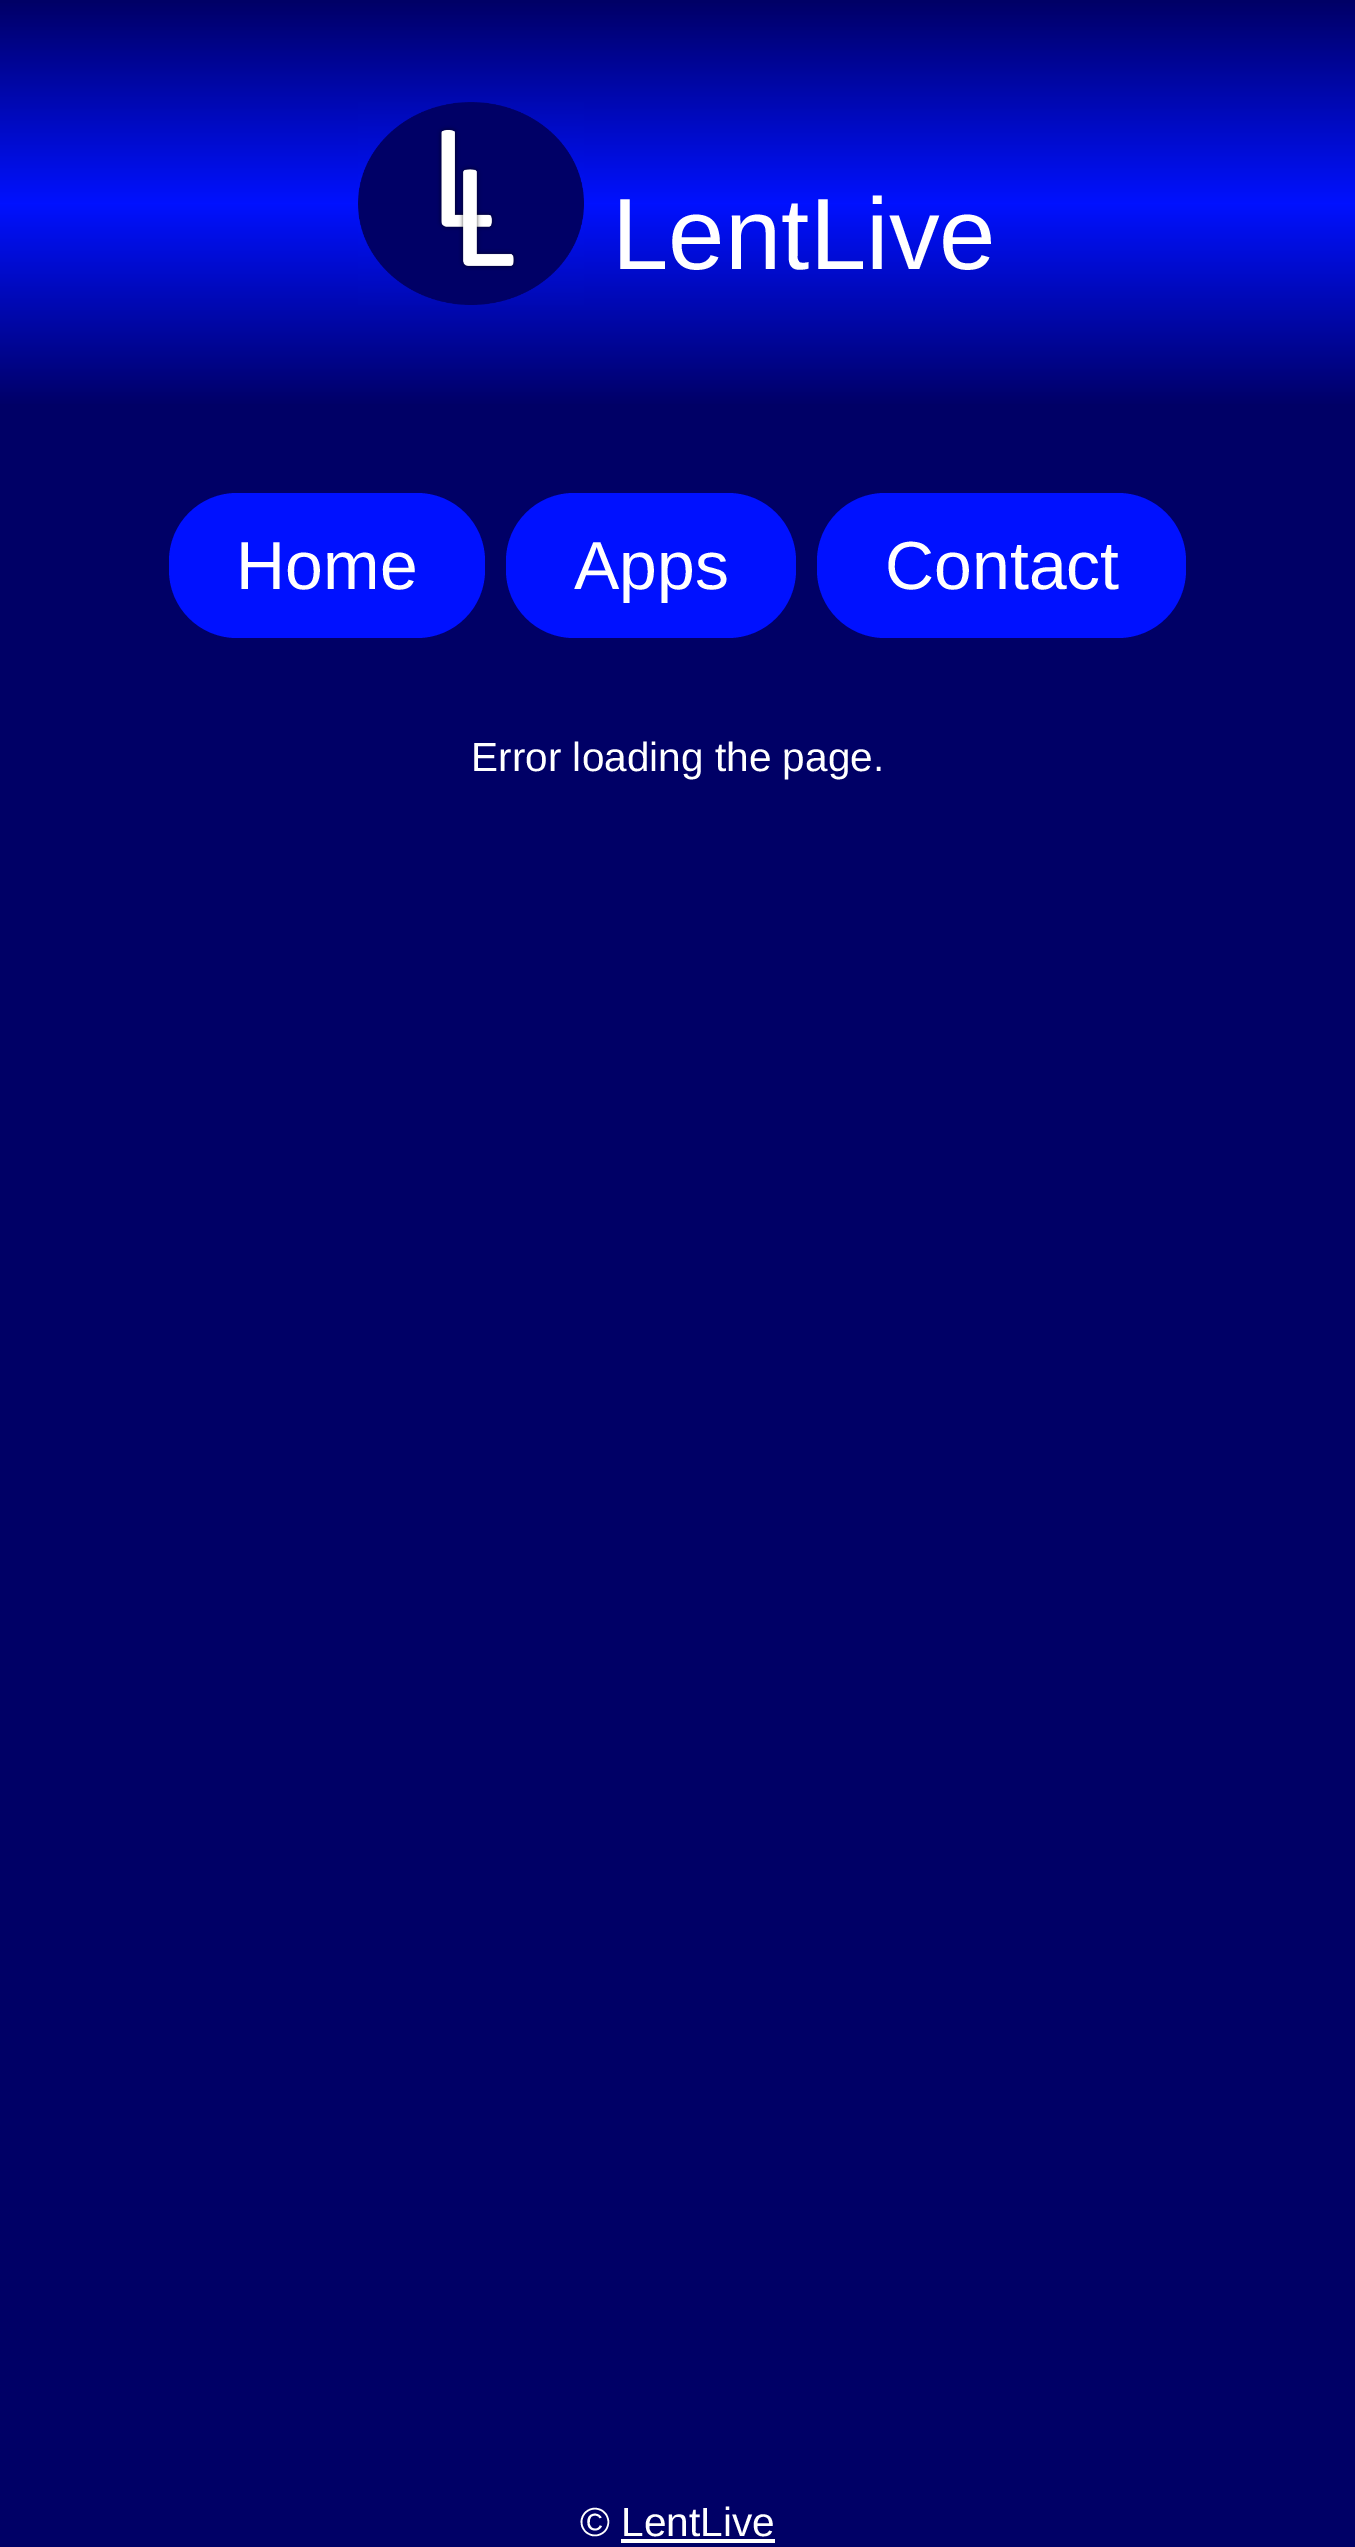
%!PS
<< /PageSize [1355 2547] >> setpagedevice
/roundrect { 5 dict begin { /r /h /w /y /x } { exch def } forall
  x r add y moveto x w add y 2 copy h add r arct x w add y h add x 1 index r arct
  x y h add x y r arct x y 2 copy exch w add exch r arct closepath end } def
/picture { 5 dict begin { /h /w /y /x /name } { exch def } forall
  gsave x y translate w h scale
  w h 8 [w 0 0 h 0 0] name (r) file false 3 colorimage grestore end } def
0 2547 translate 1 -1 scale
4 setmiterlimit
0 0 0.4 setrgbcolor
0 0 1355 2547 rectfill
gsave newpath 0 3 moveto 1355 3 lineto 1355 404 lineto 0 404 lineto closepath clip newpath
<< /ShadingType 2 /ColorSpace /DeviceRGB /Coords [678 0 678 407] /Extend [true true] /Function << /FunctionType 3 /Domain [0 1] /Functions [<< /FunctionType 2 /Domain [0 1] /C0 [0 0 0.4] /C1 [0 0.067 1] /N 1 >> << /FunctionType 2 /Domain [0 1] /C0 [0 0.067 1] /C1 [0 0 0.4] /N 1 >>] /Bounds [0.5] /Encode [0 1 0 1] >> >> shfill grestore
(img1.rgb) 358 102 226 203 picture
/LiberationSans-Regular [101.5 0 0 -101.5 0 0] selectfont
1 setgray
612 269 moveto (LentLive) show
0 0.067 1 setrgbcolor
169 493 316 145 68 roundrect fill
/LiberationSans-Regular [68 0 0 -68 0 0] selectfont
1 setgray
236 589 moveto (Home) show
0 0.067 1 setrgbcolor
506 493 290 145 68 roundrect fill
1 setgray
574 589 moveto (Apps) show
0 0.067 1 setrgbcolor
817 493 369 145 68 roundrect fill
1 setgray
885 589 moveto (Contact) show
/LiberationSans-Regular [40.6 0 0 -40.6 0 0] selectfont
471 771 moveto (Error loading the page.) show
580 2536 moveto (© LentLive) show
621 2539 154 4 rectfill
showpage
